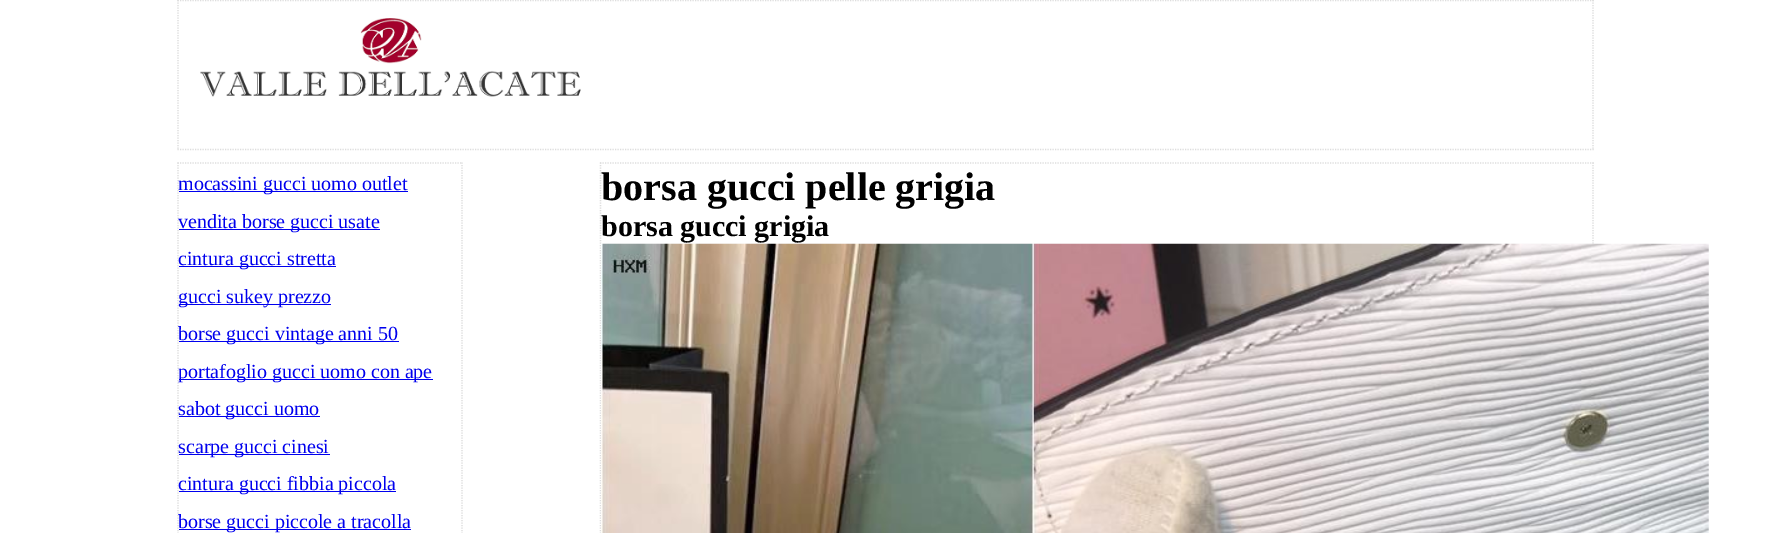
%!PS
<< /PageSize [1771 533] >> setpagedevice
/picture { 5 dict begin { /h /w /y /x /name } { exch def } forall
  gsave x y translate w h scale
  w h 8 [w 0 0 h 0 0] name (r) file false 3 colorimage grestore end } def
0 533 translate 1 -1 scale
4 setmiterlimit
1 setgray
0 0 1771 533 rectfill
0.867 setgray
1.2 setlinewidth
[1.25 1.25] 0 setdash
newpath 177.5 0.5 moveto 1594 0.5 lineto stroke
newpath 1593 0 moveto 1593 150 lineto stroke
newpath 177.5 149.5 moveto 1594 149.5 lineto stroke
newpath 178 0 moveto 178 150 lineto stroke
(img1.rgb) 200 18 381 79 picture
newpath 177.5 163 moveto 462.5 163 lineto stroke
newpath 462 162.5 moveto 462 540 lineto stroke
newpath 178 162.5 moveto 178 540 lineto stroke
0 0 0.933 setrgbcolor
179 191 229 1 rectfill
/LiberationSerif-Regular [20 0 0 -20 0 0] selectfont
178 190 moveto (mocassini gucci uomo outlet) show
179 229 201 1 rectfill
178 228 moveto (vendita borse gucci usate) show
179 266 157 1 rectfill
178 265 moveto (cintura gucci stretta) show
179 304 152 1 rectfill
178 303 moveto (gucci sukey prezzo) show
179 341 220 1 rectfill
178 340 moveto (borse gucci vintage anni 50) show
179 379 254 1 rectfill
178 378 moveto (portafoglio gucci uomo con ape) show
179 416 141 1 rectfill
178 415 moveto (sabot gucci uomo) show
179 454 151 1 rectfill
178 453 moveto (scarpe gucci cinesi) show
179 491 217 1 rectfill
178 490 moveto (cintura gucci fibbia piccola) show
179 529 232 1 rectfill
178 528 moveto (borse gucci piccole a tracolla) show
0.867 setgray
newpath 600 163 moveto 1594 163 lineto stroke
newpath 1593 162.5 moveto 1593 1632.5 lineto stroke
newpath 600.5 162.5 moveto 600.5 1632.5 lineto stroke
/LiberationSerif-Bold [40 0 0 -40 0 0] selectfont
0 setgray
601 200 moveto (borsa gucci pelle grigia) show
/LiberationSerif-Bold [30 0 0 -30 0 0] selectfont
601 236 moveto (borsa gucci grigia) show
(img2.rgb) 601 243 1108 290 picture
showpage
